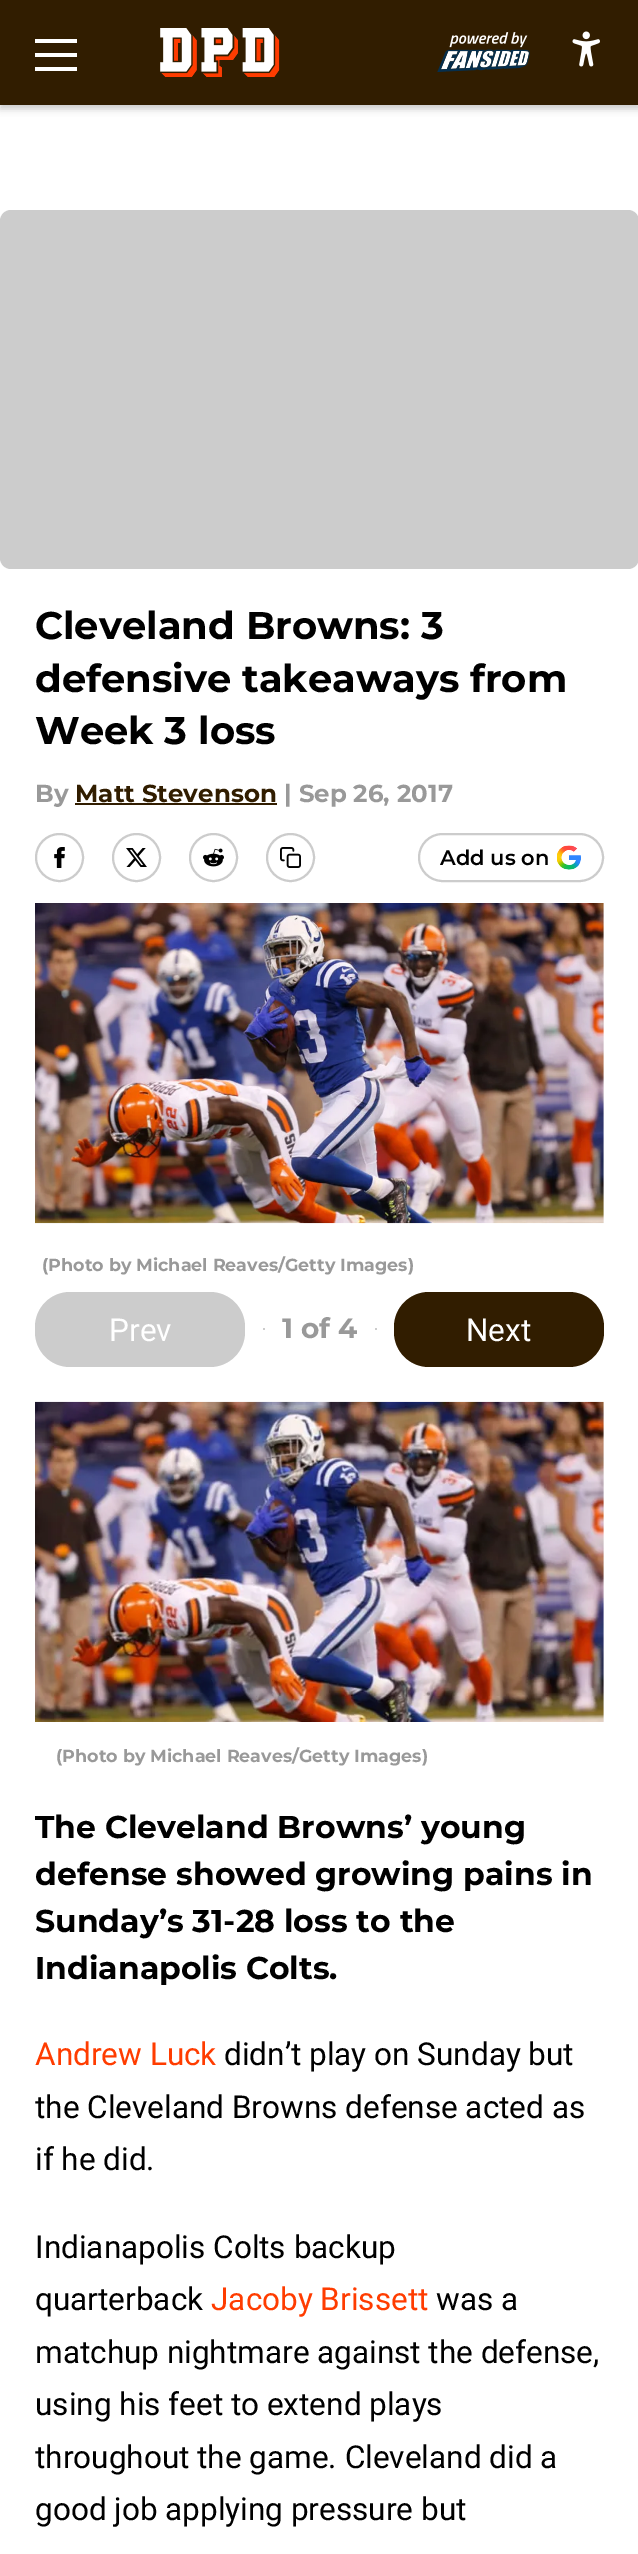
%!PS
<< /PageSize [638 2554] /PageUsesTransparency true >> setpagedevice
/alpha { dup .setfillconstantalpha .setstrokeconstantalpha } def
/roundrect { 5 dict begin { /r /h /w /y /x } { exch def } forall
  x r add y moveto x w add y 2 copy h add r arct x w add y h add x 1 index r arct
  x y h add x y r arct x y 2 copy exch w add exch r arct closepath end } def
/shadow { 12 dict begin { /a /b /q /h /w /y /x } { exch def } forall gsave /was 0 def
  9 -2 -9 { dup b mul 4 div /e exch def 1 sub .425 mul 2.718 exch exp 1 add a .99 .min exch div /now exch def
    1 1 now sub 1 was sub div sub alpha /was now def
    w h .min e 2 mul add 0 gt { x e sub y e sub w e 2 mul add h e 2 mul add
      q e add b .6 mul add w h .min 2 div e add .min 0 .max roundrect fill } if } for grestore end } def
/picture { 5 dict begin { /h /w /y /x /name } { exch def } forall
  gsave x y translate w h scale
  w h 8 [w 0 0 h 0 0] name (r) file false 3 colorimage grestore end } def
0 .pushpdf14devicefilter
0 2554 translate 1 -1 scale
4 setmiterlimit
1 setgray
0 0 638 2554 rectfill
0 setgray
0 4 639 105 0 3.5 0.2 shadow
0.192 0.114 0 setrgbcolor
0 0 638 105 rectfill
1 setgray
35 39 42 4 rectfill
35 53 42 4 rectfill
35 67 42 4 rectfill
(img1.rgb) 160 28 120 49 picture
(img2.rgb) 437 32 93 40 picture
(img3.rgb) 572 31 28 36 picture
0.8 setgray
0 210 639 359 11 roundrect fill
/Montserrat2-Thin [38.5 0 0 -38.5 0 0] selectfont
0 setgray
35 639 moveto (Cleveland Browns: 3) show
35 692 moveto (defensive takeaways from) show
35 744 moveto (Week 3 loss) show
/Montserrat2-Thin [24.5 0 0 -24.5 0 0] selectfont
0.6 setgray
35 802 moveto (By) show
0.192 0.114 0 setrgbcolor
75 802 moveto (Matt Stevenson) show
75 803 202 2 rectfill
0.6 setgray
284 802 moveto (| Sep 26, 2017) show
0.8 setgray
2 setlinewidth
newpath 59.5 857.5 23.5 0 360 arc closepath stroke
(img4.rgb) 54 847 11 21 picture
newpath 136.5 857.5 23.5 0 360 arc closepath stroke
(img5.rgb) 126 848 21 19 picture
newpath 213.5 857.5 23.5 0 360 arc closepath stroke
(img6.rgb) 203 848 21 19 picture
newpath 290.5 857.5 23.5 0 360 arc closepath stroke
(img7.rgb) 280 847 21 21 picture
419 834 184 47 23.5 roundrect stroke
/Montserrat-Thin [21 0 0 -21 0 0] selectfont
0 setgray
440 865 moveto (Add us on) show
(img8.rgb) 557 845 24 25 picture
0.969 setgray
603 903 1 320 rectfill
(img9.rgb) 35 903 569 321 picture
/Montserrat2-Thin [17.5 0 0 -17.5 0 0] selectfont
0.6 setgray
42 1271 moveto (\(Photo by Michael Reaves/Getty Images\)) show
0.8 setgray
35 1292 210 75 35 roundrect fill
/Roboto-Regular [31.5 0 0 -31.5 0 0] selectfont
1 setgray
109 1341 moveto (Prev) show
0.8 setgray
263 1328 2 2 rectfill
/Montserrat2-Thin [28 0 0 -28 0 0] selectfont
0.6 setgray
282 1338 moveto (1 of 4) show
0.8 setgray
375 1328 2 2 rectfill
0.192 0.114 0 setrgbcolor
394 1292 210 75 35 roundrect fill
/Roboto-Regular [31.5 0 0 -31.5 0 0] selectfont
1 setgray
466 1341 moveto (Next) show
0.969 setgray
603 1402 1 320 rectfill
(img10.rgb) 35 1401 569 321 picture
/Montserrat2-Thin [17.5 0 0 -17.5 0 0] selectfont
0.6 setgray
56 1762 moveto (\(Photo by Michael Reaves/Getty Images\)) show
/Montserrat2-Thin [31.5 0 0 -31.5 0 0] selectfont
0 setgray
35 1838 moveto (The Cleveland Browns’ young) show
35 1885 moveto (defense showed growing pains in) show
35 1932 moveto (Sunday’s 31-28 loss to the) show
35 1979 moveto (Indianapolis Colts.) show
/Roboto-Regular [31.5 0 0 -31.5 0 0] selectfont
1 0.235 0 setrgbcolor
35 2065 moveto (Andrew Luck) show
0 setgray
224 2065 moveto (didn’t play on Sunday but) show
35 2118 moveto (the Cleveland Browns defense acted as) show
35 2170 moveto (if he did.) show
35 2258 moveto (Indianapolis Colts backup) show
35 2310 moveto (quarterback) show
1 0.235 0 setrgbcolor
211 2310 moveto (Jacoby Brissett) show
0 setgray
436 2310 moveto (was a) show
35 2363 moveto (matchup nightmare against the defense,) show
35 2415 moveto (using his feet to extend plays) show
35 2468 moveto (throughout the game. Cleveland did a) show
35 2520 moveto (good job applying pressure but) show
.poppdf14devicefilter showpage
